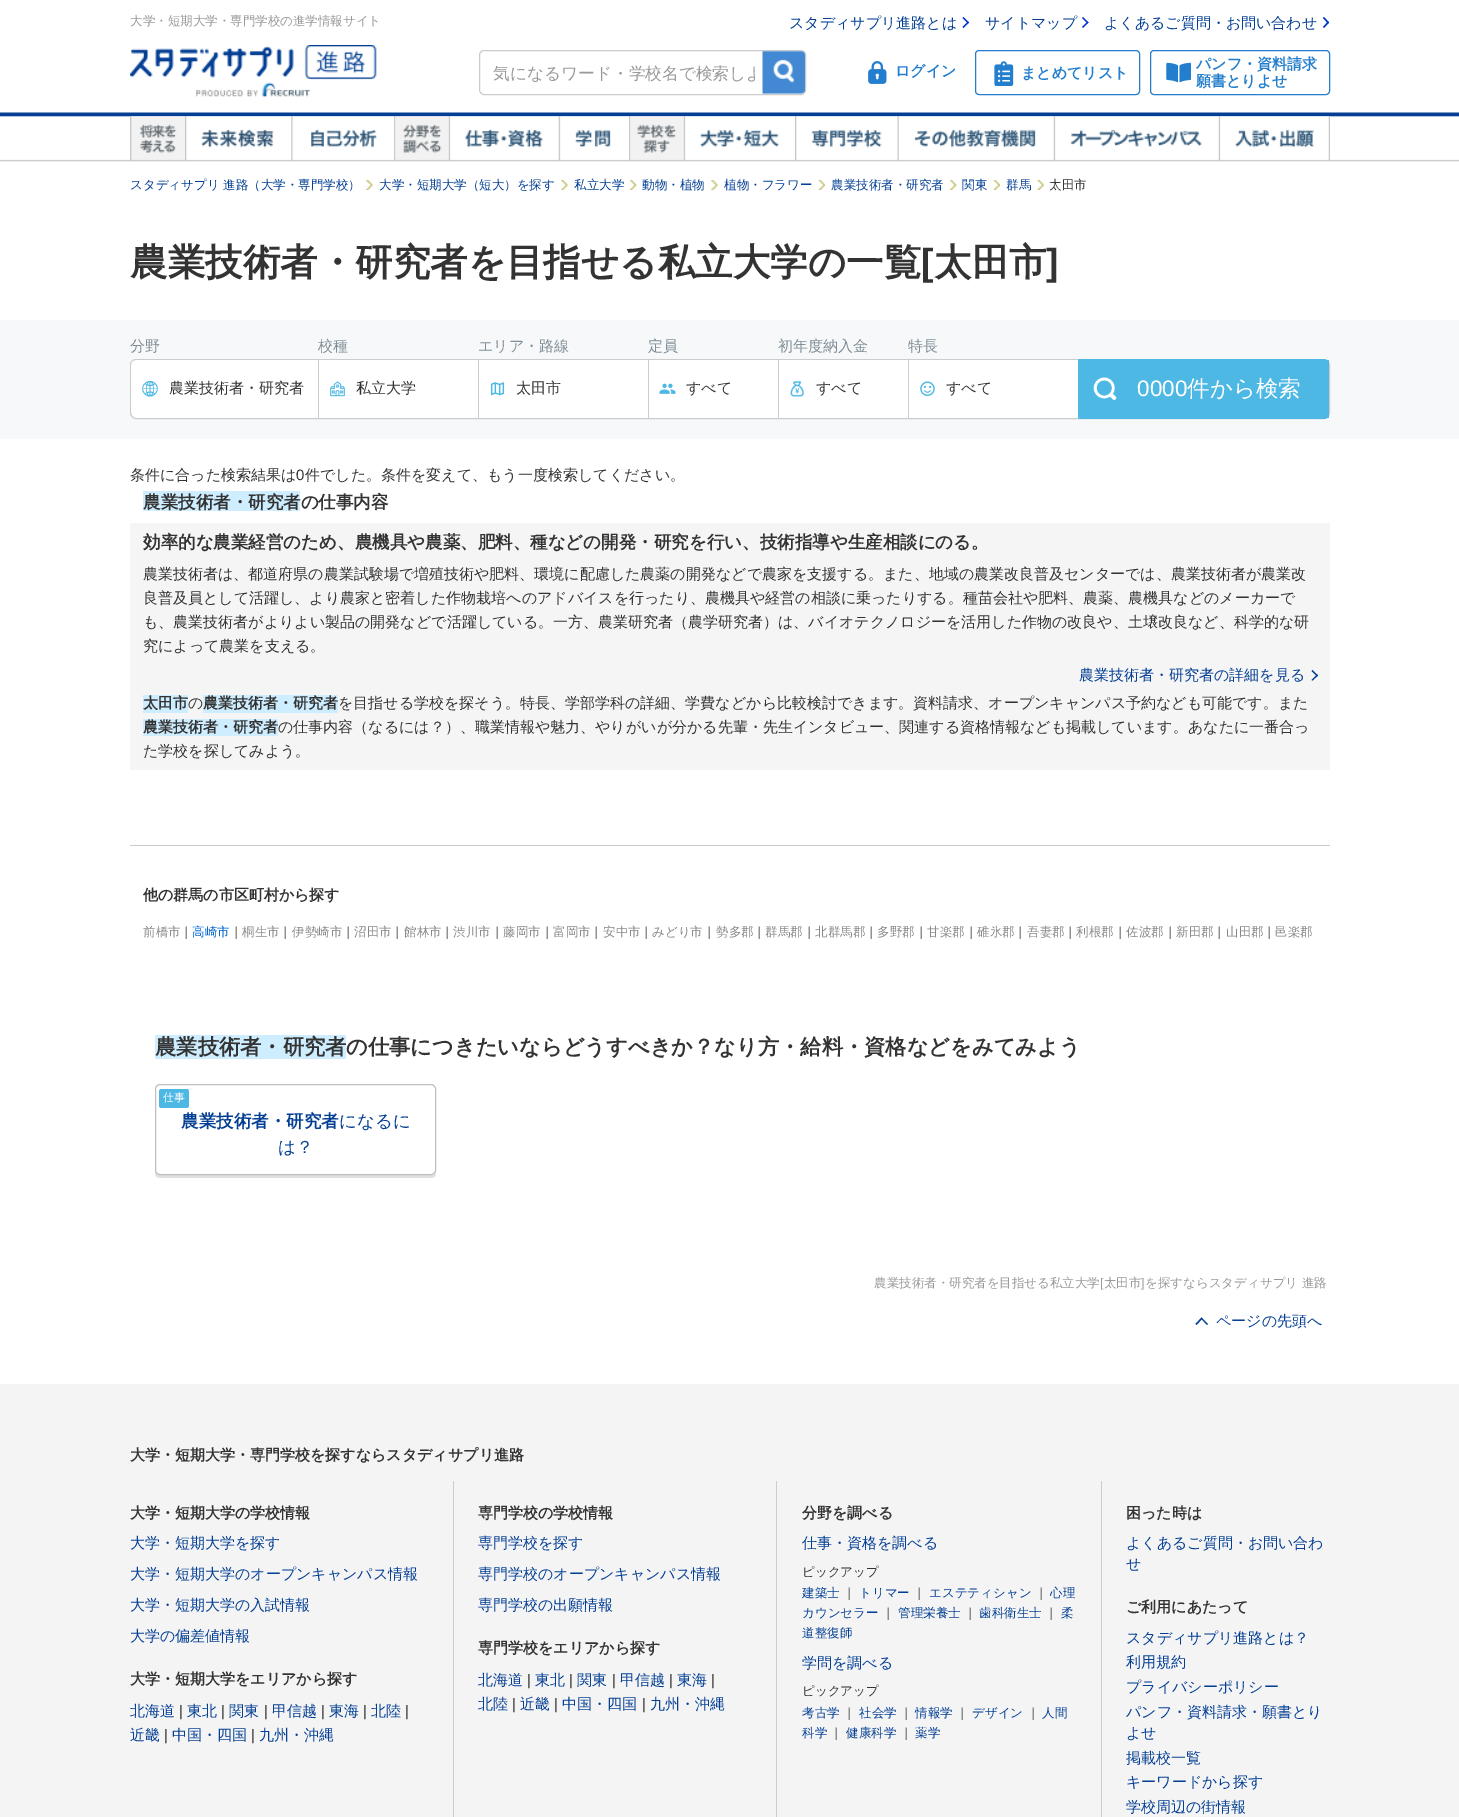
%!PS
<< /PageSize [1459 1817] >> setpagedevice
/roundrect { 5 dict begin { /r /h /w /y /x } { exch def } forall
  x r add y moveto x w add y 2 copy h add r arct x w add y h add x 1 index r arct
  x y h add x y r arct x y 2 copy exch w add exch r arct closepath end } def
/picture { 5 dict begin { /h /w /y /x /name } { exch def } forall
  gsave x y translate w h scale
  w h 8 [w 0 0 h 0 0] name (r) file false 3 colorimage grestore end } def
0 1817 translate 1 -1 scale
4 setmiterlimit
1 setgray
0 0 1459 1817 rectfill
/WenQuanYiZenHei-Medium [12.5 0 0 -12.5 0 0] selectfont
0.6 setgray
130 25 moveto (大学・短期大学・専門学校の進学情報サイト) show
(img1.rgb) 130 45 247 53 picture
/WenQuanYiZenHei-Medium [15 0 0 -15 0 0] selectfont
0.016 0.247 0.58 setrgbcolor
789 28 moveto (スタディサプリ進路とは) show
0 0.2 0.8 setrgbcolor
newpath 963.5 17 moveto 969 22.5 lineto 968 23.5 lineto 962.5 18 lineto closepath fill
newpath 968 21.5 moveto 969 22.5 lineto 963.5 28 lineto 962.5 27 lineto closepath fill
0.016 0.247 0.58 setrgbcolor
985 28 moveto (サイトマップ) show
0 0.2 0.8 setrgbcolor
newpath 1083 17 moveto 1088.5 22.5 lineto 1087.5 23.5 lineto 1082 18 lineto closepath fill
newpath 1087.5 21.5 moveto 1088.5 22.5 lineto 1083 28 lineto 1082 27 lineto closepath fill
0.016 0.247 0.58 setrgbcolor
1104 28 moveto (よくあるご質問・お問い合わせ) show
0 0.2 0.8 setrgbcolor
newpath 1324 17 moveto 1329 22.5 lineto 1328 23.5 lineto 1323 18 lineto closepath fill
newpath 1328 21.5 moveto 1329 22.5 lineto 1324 28 lineto 1323 27 lineto closepath fill
0.796 setgray
479.5 50.5 326 44 4.5 roundrect stroke
gsave
493 64 262 20 rectclip
/WenQuanYiZenHei-Medium [16.7 0 0 -16.7 0 0] selectfont
0.6 setgray
493 79 moveto (気になるワード・学校名で検索しよ) show
grestore
(img2.rgb) 762 51 43 43 picture
(img3.rgb) 868 61 19 23 picture
/WenQuanYiZenHei-Bold [15 0 0 -15 0 0] selectfont
0.137 0.494 0.804 setrgbcolor
895 76 moveto (ログイン) show
975.5 50.5 164 44 3.5 roundrect stroke
(img4.rgb) 994 61 20 25 picture
1021 78 moveto (まとめてリスト) show
1150.5 50.5 179 44 3.5 roundrect stroke
(img5.rgb) 1166 62 25 21 picture
1196 69 moveto (パンフ・資料請求) show
1196 86 moveto (願書とりよせ) show
(img6.rgb) 0 112 1459 50 picture
(img7.rgb) 130 116 55 45 picture
(img8.rgb) 185 116 107 45 picture
(img9.rgb) 291 116 103 45 picture
(img10.rgb) 394 116 55 45 picture
(img11.rgb) 448 116 111 45 picture
(img12.rgb) 558 116 71 45 picture
(img13.rgb) 629 116 55 45 picture
(img14.rgb) 683 116 112 45 picture
(img15.rgb) 795 116 103 45 picture
(img16.rgb) 897 116 157 45 picture
(img17.rgb) 1053 116 166 45 picture
(img18.rgb) 1218 116 112 45 picture
/WenQuanYiZenHei-Medium [12.5 0 0 -12.5 0 0] selectfont
0.016 0.247 0.58 setrgbcolor
130 189 moveto (スタディサプリ 進路（大学・専門学校）) show
(img19.rgb) 366 180 7 10 picture
379 189 moveto (大学・短期大学（短大）を探す) show
(img19.rgb) 561 180 7 10 picture
574 189 moveto (私立大学) show
(img20.rgb) 630 180 7 10 picture
642 189 moveto (動物・植物) show
(img19.rgb) 711 180 7 10 picture
724 189 moveto (植物・フラワー) show
(img21.rgb) 818 180 7 10 picture
831 189 moveto (農業技術者・研究者) show
(img22.rgb) 950 180 7 10 picture
962 189 moveto (関東) show
(img21.rgb) 993 180 7 10 picture
1006 189 moveto (群馬) show
(img23.rgb) 1037 180 7 10 picture
0.2 setgray
1049 189 moveto (太田市) show
/WenQuanYiZenHei-Bold [37.5 0 0 -37.5 0 0] selectfont
130 275 moveto (農業技術者・研究者を目指せる私立大学の一覧) show
/LiberationSans-Bold [37.5 0 0 -37.5 0 0] selectfont
921 275 moveto ([) show
/WenQuanYiZenHei-Bold [37.5 0 0 -37.5 0 0] selectfont
934 275 moveto (太田市) show
/LiberationSans-Bold [37.5 0 0 -37.5 0 0] selectfont
1046 275 moveto (]) show
0.965 0.973 0.976 setrgbcolor
0 320 1459 119 rectfill
/WenQuanYiZenHei-Medium [15 0 0 -15 0 0] selectfont
0.502 0.553 0.588 setrgbcolor
130 351 moveto (分野) show
318 351 moveto (校種) show
478 351 moveto (エリア・路線) show
648 351 moveto (定員) show
778 351 moveto (初年度納入金) show
908 351 moveto (特長) show
0.8 setgray
130.5 359.5 1199 59 5.5 roundrect stroke
1 setgray
newpath 136 359 moveto 318 359 lineto 318 419 lineto 136 419 lineto 132.5 419 130 416.5 130 413 curveto 130 365 lineto 130 361.5 132.5 359 136 359 curveto closepath fill
0.8 setgray
newpath 136 359 moveto 318 359 lineto 318 419 lineto 136 419 lineto 133 419 130 416 130 412 curveto 130 365 lineto 130 362 133 359 136 359 curveto closepath 136 360 moveto 318 360 lineto 318 418 lineto 136 418 lineto 133 418 131 415 131 412 curveto 131 365 lineto 131 362 133 360 136 360 curveto closepath eofill
0.302 0.722 0.894 setrgbcolor
newpath 155.5 383.5 moveto 162.5 390.5 151.5 401.5 144.5 394 curveto 137.5 387 148.5 376 155.5 383.5 curveto closepath 149.5 382 moveto 148.5 382.5 147.5 383.5 147.5 384.5 curveto 149.5 385 lineto closepath 150.5 382 moveto 150.5 385 lineto 152.5 384.5 lineto 152.5 383.5 151.5 382.5 150.5 382 curveto closepath 148 382 moveto 145.5 383.5 lineto 146.5 384.5 lineto closepath 154.5 383.5 moveto 152 382 lineto 153.5 384.5 lineto closepath 157 388.5 moveto 157 387 156 385 155 384 curveto 153.5 385 lineto 154 388.5 lineto closepath 145 384 moveto 144 385 143 387 143 388.5 curveto 146 388.5 lineto 146.5 385 lineto closepath 149.5 388.5 moveto 149.5 386 lineto 147 385.5 lineto 146.5 388.5 lineto closepath 153 385.5 moveto 150.5 386 lineto 150.5 388.5 lineto 153.5 388.5 lineto closepath 147 392 moveto 149.5 391.5 lineto 149.5 389 lineto 146.5 389 lineto closepath 150.5 389 moveto 150.5 391.5 lineto 153 392 lineto 153.5 389 lineto closepath 143 389 moveto 143 390.5 144 392.5 145 393.5 curveto 146.5 392.5 lineto 146 389 lineto closepath 155 393.5 moveto 156 392.5 157 390.5 157 389 curveto 154 389 lineto 153.5 392.5 lineto closepath 150.5 395.5 moveto 151.5 395 152 394 152.5 393 curveto 150.5 392.5 lineto closepath 149.5 395.5 moveto 149.5 392.5 lineto 147.5 393 lineto 148 394 148.5 395 149.5 395.5 curveto closepath 152 395.5 moveto 154.5 394 lineto 153.5 393 lineto closepath 145.5 394 moveto 148 395.5 lineto 146.5 393 lineto closepath eofill
0.2 setgray
169 393 moveto (農業技術者・研究者) show
1 setgray
319 360 159 58 rectfill
0.8 setgray
318 359 1 60 rectfill
(img24.rgb) 330 381 15 16 picture
0.2 setgray
356 393 moveto (私立大学) show
1 setgray
479 360 169 58 rectfill
0.8 setgray
478 359 1 60 rectfill
(img25.rgb) 490 382 15 14 picture
0.2 setgray
516 393 moveto (太田市) show
1 setgray
649 360 129 58 rectfill
0.8 setgray
648 359 1 60 rectfill
(img26.rgb) 659 383 17 11 picture
0.2 setgray
686 393 moveto (すべて) show
1 setgray
779 360 129 58 rectfill
0.8 setgray
778 359 1 60 rectfill
(img27.rgb) 790 381 14 16 picture
0.2 setgray
816 393 moveto (すべて) show
1 setgray
909 360 169 58 rectfill
0.8 setgray
908 359 1 60 rectfill
(img28.rgb) 920 381 15 15 picture
0.2 setgray
946 393 moveto (すべて) show
1 setgray
newpath 1078 359 moveto 1324 359 lineto 1327.5 359 1330 361.5 1330 365 curveto 1330 413 lineto 1330 416.5 1327.5 419 1324 419 curveto 1078 419 lineto closepath fill
0.302 0.722 0.894 setrgbcolor
newpath 1078 359 moveto 1079 360 lineto 1324 360 lineto 1325 360 1327 360 1327 361 curveto 1328 361 lineto 1327 360 1325 359 1324 359 curveto closepath fill
0.8 setgray
newpath 1328 361 moveto 1329 362 1330 363 1330 365 curveto 1330 412 lineto 1330 414 1329 416 1328 417 curveto 1328 416 lineto 1328 415 1329 414 1329 412 curveto 1329 365 lineto 1329 363 1328 362 1327 361 curveto closepath fill
0.302 0.722 0.894 setrgbcolor
newpath 1078 419 moveto 1079 417 lineto 1079 418 lineto 1324 418 lineto 1325 418 1327 417 1328 416 curveto 1328 417 lineto 1326 419 lineto closepath fill
newpath 1078 359 moveto 1078 418 lineto 1079 417 lineto 1079 360 lineto closepath fill
1079 360 250 58 rectfill
(img29.rgb) 1093 377 24 23 picture
/LiberationSans-Regular [22.5 0 0 -22.5 0 0] selectfont
1 setgray
1137 396 moveto (0000) show
/WenQuanYiZenHei-Medium [22.5 0 0 -22.5 0 0] selectfont
1187 396 moveto (件から検索) show
/WenQuanYiZenHei-Medium [15 0 0 -15 0 0] selectfont
0.2 setgray
130 480 moveto (条件に合った検索結果は) show
/LiberationSans-Regular [15 0 0 -15 0 0] selectfont
296 480 moveto (0) show
/WenQuanYiZenHei-Medium [15 0 0 -15 0 0] selectfont
305 480 moveto (件でした。条件を変えて、もう一度検索してください。) show
0.808 0.929 1 setrgbcolor
143 491 157 20 rectfill
/WenQuanYiZenHei-Bold [17.5 0 0 -17.5 0 0] selectfont
0.2 setgray
143 508 moveto (農業技術者・研究者の仕事内容) show
0.961 setgray
130 523 1200 247 rectfill
0.2 setgray
143 548 moveto (効率的な農業経営のため、農機具や農薬、肥料、種などの開発・研究を行い、技術指導や生産相談にのる。) show
/WenQuanYiZenHei-Medium [15 0 0 -15 0 0] selectfont
143 579 moveto (農業技術者は、都道府県の農業試験場で増殖技術や肥料、環境に配慮した農薬の開発などで農家を支援する。また、地域の農業改良普及センターでは、農業技術者が農業改) show
143 603 moveto (良普及員として活躍し、より農家と密着した作物栽培へのアドバイスを行ったり、農機具や経営の相談に乗ったりする。種苗会社や肥料、農薬、農機具などのメーカーで) show
143 627 moveto (も、農業技術者がよりよい製品の開発などで活躍している。一方、農業研究者（農学研究者）は、バイオテクノロジーを活用した作物の改良や、土壌改良など、科学的な研) show
143 651 moveto (究によって農業を支える。) show
0.016 0.247 0.58 setrgbcolor
1079 680 moveto (農業技術者・研究者の詳細を見る) show
newpath 1312.5 670 moveto 1318 675.5 lineto 1317 676.5 lineto 1311.5 671 lineto closepath fill
newpath 1317 674.5 moveto 1318 675.5 lineto 1312.5 680.5 lineto 1311.5 680 lineto closepath fill
0.808 0.929 1 setrgbcolor
143 695 45 18 rectfill
/WenQuanYiZenHei-Bold [15 0 0 -15 0 0] selectfont
0.2 setgray
143 708 moveto (太田市) show
/WenQuanYiZenHei-Medium [15 0 0 -15 0 0] selectfont
188 708 moveto (の) show
0.808 0.929 1 setrgbcolor
203 695 135 18 rectfill
/WenQuanYiZenHei-Bold [15 0 0 -15 0 0] selectfont
0.2 setgray
203 708 moveto (農業技術者・研究者) show
/WenQuanYiZenHei-Medium [15 0 0 -15 0 0] selectfont
338 708 moveto (を目指せる学校を探そう。特長、学部学科の詳細、学費などから比較検討できます。資料請求、オープンキャンパス予約なども可能です。また) show
0.808 0.929 1 setrgbcolor
143 719 135 17 rectfill
/WenQuanYiZenHei-Bold [15 0 0 -15 0 0] selectfont
0.2 setgray
143 732 moveto (農業技術者・研究者) show
/WenQuanYiZenHei-Medium [15 0 0 -15 0 0] selectfont
278 732 moveto (の仕事内容（なるには？）、職業情報や魅力、やりがいが分かる先輩・先生インタビュー、関連する資格情報なども掲載しています。あなたに一番合っ) show
143 756 moveto (た学校を探してみよう。) show
0.8 setgray
130 845 1200 1 rectfill
/WenQuanYiZenHei-Bold [15 0 0 -15 0 0] selectfont
0.2 setgray
143 900 moveto (他の群馬の市区町村から探す) show
/WenQuanYiZenHei-Medium [12.5 0 0 -12.5 0 0] selectfont
0.533 setgray
143 936 moveto (前橋市) show
0.2 setgray
180 936 moveto (｜) show
0 0.4 0.812 setrgbcolor
192 936 moveto (高崎市) show
0.2 setgray
230 936 moveto (｜) show
0.533 setgray
242 936 moveto (桐生市) show
0.2 setgray
279 936 moveto (｜) show
0.533 setgray
292 936 moveto (伊勢崎市) show
0.2 setgray
342 936 moveto (｜) show
0.533 setgray
354 936 moveto (沼田市) show
0.2 setgray
391 936 moveto (｜) show
0.533 setgray
404 936 moveto (館林市) show
0.2 setgray
441 936 moveto (｜) show
0.533 setgray
453 936 moveto (渋川市) show
0.2 setgray
491 936 moveto (｜) show
0.533 setgray
503 936 moveto (藤岡市) show
0.2 setgray
541 936 moveto (｜) show
0.533 setgray
553 936 moveto (富岡市) show
0.2 setgray
590 936 moveto (｜) show
0.533 setgray
603 936 moveto (安中市) show
0.2 setgray
640 936 moveto (｜) show
0.533 setgray
652 936 moveto (みどり市) show
0.2 setgray
703 936 moveto (｜) show
0.533 setgray
716 936 moveto (勢多郡) show
0.2 setgray
753 936 moveto (｜) show
0.533 setgray
765 936 moveto (群馬郡) show
0.2 setgray
803 936 moveto (｜) show
0.533 setgray
815 936 moveto (北群馬郡) show
0.2 setgray
865 936 moveto (｜) show
0.533 setgray
877 936 moveto (多野郡) show
0.2 setgray
915 936 moveto (｜) show
0.533 setgray
927 936 moveto (甘楽郡) show
0.2 setgray
965 936 moveto (｜) show
0.533 setgray
977 936 moveto (碓氷郡) show
0.2 setgray
1014 936 moveto (｜) show
0.533 setgray
1027 936 moveto (吾妻郡) show
0.2 setgray
1064 936 moveto (｜) show
0.533 setgray
1076 936 moveto (利根郡) show
0.2 setgray
1114 936 moveto (｜) show
0.533 setgray
1126 936 moveto (佐波郡) show
0.2 setgray
1164 936 moveto (｜) show
0.533 setgray
1176 936 moveto (新田郡) show
0.2 setgray
1213 936 moveto (｜) show
0.533 setgray
1226 936 moveto (山田郡) show
0.2 setgray
1263 936 moveto (｜) show
0.533 setgray
1275 936 moveto (邑楽郡) show
0.808 0.929 1 setrgbcolor
155 1035 191 24 rectfill
/WenQuanYiZenHei-Bold [21.25 0 0 -21.25 0 0] selectfont
0.2 setgray
155 1054 moveto (農業技術者・研究者の仕事につきたいならどうすべきか？なり方・給料・資格などをみてみよう) show
0.878 setgray
newpath 155 1170 moveto 155 1173 lineto 155 1176 157 1178 160 1178 curveto 431 1178 lineto 434 1178 436 1176 436 1173 curveto 436 1172 lineto 435 1174 433 1175 431 1175 curveto 160 1175 lineto 157 1175 155 1173 155 1170 curveto closepath fill
1 setgray
155.5 1084.5 280 90 4.5 roundrect gsave fill grestore
0.753 setgray
stroke
0.302 0.722 0.894 setrgbcolor
159 1089 30 19 2.5 roundrect fill
/WenQuanYiZenHei-Medium [11 0 0 -11 0 0] selectfont
1 setgray
163 1101 moveto (仕事) show
/WenQuanYiZenHei-Bold [17.5 0 0 -17.5 0 0] selectfont
0.016 0.247 0.58 setrgbcolor
181 1127 moveto (農業技術者・研究者) show
/WenQuanYiZenHei-Medium [17.5 0 0 -17.5 0 0] selectfont
339 1127 moveto (になるに) show
278 1153 moveto (は？) show
/WenQuanYiZenHei-Medium [12.5 0 0 -12.5 0 0] selectfont
0.6 setgray
874 1287 moveto (農業技術者・研究者を目指せる私立大学 太田市) show
1145 1287 moveto (を探すならスタディサプリ 進路) show
/LiberationSans-Regular [12.5 0 0 -12.5 0 0] selectfont
1100 1287 moveto ([) show
1141 1287 moveto (]) show
0.016 0.247 0.58 setrgbcolor
newpath 1201.5 1317.5 moveto 1208 1324 lineto 1207 1325 lineto 1201 1318.5 lineto closepath fill
newpath 1201.5 1317.5 moveto 1202.5 1318.5 lineto 1196.5 1325 lineto 1195.5 1324 lineto closepath fill
/WenQuanYiZenHei-Medium [15 0 0 -15 0 0] selectfont
1216 1326 moveto (ページの先頭へ) show
0.957 setgray
0 1384 1459 433 rectfill
/WenQuanYiZenHei-Bold [15 0 0 -15 0 0] selectfont
0.2 setgray
130 1460 moveto (大学・短期大学・専門学校を探すならスタディサプリ進路) show
0.8 setgray
453 1481 1 336 rectfill
0.2 setgray
130 1518 moveto (大学・短期大学の学校情報) show
/WenQuanYiZenHei-Medium [15 0 0 -15 0 0] selectfont
0.016 0.247 0.58 setrgbcolor
130 1548 moveto (大学・短期大学を探す) show
130 1579 moveto (大学・短期大学のオープンキャンパス情報) show
130 1610 moveto (大学・短期大学の入試情報) show
130 1641 moveto (大学の偏差値情報) show
/WenQuanYiZenHei-Bold [15 0 0 -15 0 0] selectfont
0.2 setgray
130 1684 moveto (大学・短期大学をエリアから探す) show
/WenQuanYiZenHei-Medium [15 0 0 -15 0 0] selectfont
0.016 0.247 0.58 setrgbcolor
130 1716 moveto (北海道) show
/LiberationSans-Regular [15 0 0 -15 0 0] selectfont
0.2 setgray
179 1716 moveto (|) show
/WenQuanYiZenHei-Medium [15 0 0 -15 0 0] selectfont
0.016 0.247 0.58 setrgbcolor
187 1716 moveto (東北) show
/LiberationSans-Regular [15 0 0 -15 0 0] selectfont
0.2 setgray
221 1716 moveto (|) show
/WenQuanYiZenHei-Medium [15 0 0 -15 0 0] selectfont
0.016 0.247 0.58 setrgbcolor
229 1716 moveto (関東) show
/LiberationSans-Regular [15 0 0 -15 0 0] selectfont
0.2 setgray
264 1716 moveto (|) show
/WenQuanYiZenHei-Medium [15 0 0 -15 0 0] selectfont
0.016 0.247 0.58 setrgbcolor
272 1716 moveto (甲信越) show
/LiberationSans-Regular [15 0 0 -15 0 0] selectfont
0.2 setgray
321 1716 moveto (|) show
/WenQuanYiZenHei-Medium [15 0 0 -15 0 0] selectfont
0.016 0.247 0.58 setrgbcolor
329 1716 moveto (東海) show
/LiberationSans-Regular [15 0 0 -15 0 0] selectfont
0.2 setgray
363 1716 moveto (|) show
/WenQuanYiZenHei-Medium [15 0 0 -15 0 0] selectfont
0.016 0.247 0.58 setrgbcolor
371 1716 moveto (北陸) show
/LiberationSans-Regular [15 0 0 -15 0 0] selectfont
0.2 setgray
405 1716 moveto (|) show
/WenQuanYiZenHei-Medium [15 0 0 -15 0 0] selectfont
0.016 0.247 0.58 setrgbcolor
130 1740 moveto (近畿) show
/LiberationSans-Regular [15 0 0 -15 0 0] selectfont
0.2 setgray
164 1740 moveto (|) show
/WenQuanYiZenHei-Medium [15 0 0 -15 0 0] selectfont
0.016 0.247 0.58 setrgbcolor
172 1740 moveto (中国・四国) show
/LiberationSans-Regular [15 0 0 -15 0 0] selectfont
0.2 setgray
251 1740 moveto (|) show
/WenQuanYiZenHei-Medium [15 0 0 -15 0 0] selectfont
0.016 0.247 0.58 setrgbcolor
259 1740 moveto (九州・沖縄) show
0.8 setgray
776 1481 1 336 rectfill
/WenQuanYiZenHei-Bold [15 0 0 -15 0 0] selectfont
0.2 setgray
478 1518 moveto (専門学校の学校情報) show
/WenQuanYiZenHei-Medium [15 0 0 -15 0 0] selectfont
0.016 0.247 0.58 setrgbcolor
478 1548 moveto (専門学校を探す) show
478 1579 moveto (専門学校のオープンキャンパス情報) show
478 1610 moveto (専門学校の出願情報) show
/WenQuanYiZenHei-Bold [15 0 0 -15 0 0] selectfont
0.2 setgray
478 1653 moveto (専門学校をエリアから探す) show
/WenQuanYiZenHei-Medium [15 0 0 -15 0 0] selectfont
0.016 0.247 0.58 setrgbcolor
478 1685 moveto (北海道) show
/LiberationSans-Regular [15 0 0 -15 0 0] selectfont
0.2 setgray
527 1685 moveto (|) show
/WenQuanYiZenHei-Medium [15 0 0 -15 0 0] selectfont
0.016 0.247 0.58 setrgbcolor
535 1685 moveto (東北) show
/LiberationSans-Regular [15 0 0 -15 0 0] selectfont
0.2 setgray
569 1685 moveto (|) show
/WenQuanYiZenHei-Medium [15 0 0 -15 0 0] selectfont
0.016 0.247 0.58 setrgbcolor
577 1685 moveto (関東) show
/LiberationSans-Regular [15 0 0 -15 0 0] selectfont
0.2 setgray
612 1685 moveto (|) show
/WenQuanYiZenHei-Medium [15 0 0 -15 0 0] selectfont
0.016 0.247 0.58 setrgbcolor
620 1685 moveto (甲信越) show
/LiberationSans-Regular [15 0 0 -15 0 0] selectfont
0.2 setgray
669 1685 moveto (|) show
/WenQuanYiZenHei-Medium [15 0 0 -15 0 0] selectfont
0.016 0.247 0.58 setrgbcolor
677 1685 moveto (東海) show
/LiberationSans-Regular [15 0 0 -15 0 0] selectfont
0.2 setgray
711 1685 moveto (|) show
/WenQuanYiZenHei-Medium [15 0 0 -15 0 0] selectfont
0.016 0.247 0.58 setrgbcolor
478 1709 moveto (北陸) show
/LiberationSans-Regular [15 0 0 -15 0 0] selectfont
0.2 setgray
512 1709 moveto (|) show
/WenQuanYiZenHei-Medium [15 0 0 -15 0 0] selectfont
0.016 0.247 0.58 setrgbcolor
520 1709 moveto (近畿) show
/LiberationSans-Regular [15 0 0 -15 0 0] selectfont
0.2 setgray
554 1709 moveto (|) show
/WenQuanYiZenHei-Medium [15 0 0 -15 0 0] selectfont
0.016 0.247 0.58 setrgbcolor
562 1709 moveto (中国・四国) show
/LiberationSans-Regular [15 0 0 -15 0 0] selectfont
0.2 setgray
642 1709 moveto (|) show
/WenQuanYiZenHei-Medium [15 0 0 -15 0 0] selectfont
0.016 0.247 0.58 setrgbcolor
650 1709 moveto (九州・沖縄) show
0.8 setgray
1101 1481 1 336 rectfill
/WenQuanYiZenHei-Bold [15 0 0 -15 0 0] selectfont
0.2 setgray
802 1518 moveto (分野を調べる) show
/WenQuanYiZenHei-Medium [15 0 0 -15 0 0] selectfont
0.016 0.247 0.58 setrgbcolor
802 1548 moveto (仕事・資格を調べる) show
/WenQuanYiZenHei-Medium [12.5 0 0 -12.5 0 0] selectfont
0.2 setgray
802 1576 moveto (ピックアップ) show
0.016 0.247 0.58 setrgbcolor
802 1597 moveto (建築士) show
0.2 setgray
843 1597 moveto (｜) show
0.016 0.247 0.58 setrgbcolor
859 1597 moveto (トリマー) show
0.2 setgray
913 1597 moveto (｜) show
0.016 0.247 0.58 setrgbcolor
929 1597 moveto (エステティシャン) show
0.2 setgray
1035 1597 moveto (｜) show
0.016 0.247 0.58 setrgbcolor
1050 1597 moveto (心理) show
802 1617 moveto (カウンセラー) show
0.2 setgray
882 1617 moveto (｜) show
0.016 0.247 0.58 setrgbcolor
898 1617 moveto (管理栄養士) show
0.2 setgray
964 1617 moveto (｜) show
0.016 0.247 0.58 setrgbcolor
979 1617 moveto (歯科衛生士) show
0.2 setgray
1045 1617 moveto (｜) show
0.016 0.247 0.58 setrgbcolor
1061 1617 moveto (柔) show
802 1637 moveto (道整復師) show
/WenQuanYiZenHei-Medium [15 0 0 -15 0 0] selectfont
802 1668 moveto (学問を調べる) show
/WenQuanYiZenHei-Medium [12.5 0 0 -12.5 0 0] selectfont
0.2 setgray
802 1695 moveto (ピックアップ) show
0.016 0.247 0.58 setrgbcolor
802 1717 moveto (考古学) show
0.2 setgray
843 1717 moveto (｜) show
0.016 0.247 0.58 setrgbcolor
859 1717 moveto (社会学) show
0.2 setgray
900 1717 moveto (｜) show
0.016 0.247 0.58 setrgbcolor
915 1717 moveto (情報学) show
0.2 setgray
956 1717 moveto (｜) show
0.016 0.247 0.58 setrgbcolor
972 1717 moveto (デザイン) show
0.2 setgray
1027 1717 moveto (｜) show
0.016 0.247 0.58 setrgbcolor
1042 1717 moveto (人間) show
802 1737 moveto (科学) show
0.2 setgray
830 1737 moveto (｜) show
0.016 0.247 0.58 setrgbcolor
846 1737 moveto (健康科学) show
0.2 setgray
900 1737 moveto (｜) show
0.016 0.247 0.58 setrgbcolor
915 1737 moveto (薬学) show
/WenQuanYiZenHei-Bold [15 0 0 -15 0 0] selectfont
0.2 setgray
1126 1518 moveto (困った時は) show
/WenQuanYiZenHei-Medium [15 0 0 -15 0 0] selectfont
0.016 0.247 0.58 setrgbcolor
1126 1548 moveto (よくあるご質問・お問い合わ) show
1126 1569 moveto (せ) show
/WenQuanYiZenHei-Bold [15 0 0 -15 0 0] selectfont
0.2 setgray
1126 1612 moveto (ご利用にあたって) show
/WenQuanYiZenHei-Medium [15 0 0 -15 0 0] selectfont
0.016 0.247 0.58 setrgbcolor
1126 1643 moveto (スタディサプリ進路とは？) show
1126 1667 moveto (利用規約) show
1126 1692 moveto (プライバシーポリシー) show
1126 1717 moveto (パンフ・資料請求・願書とり) show
1126 1738 moveto (よせ) show
1126 1763 moveto (掲載校一覧) show
1126 1787 moveto (キーワードから探す) show
1126 1812 moveto (学校周辺の街情報) show
showpage
